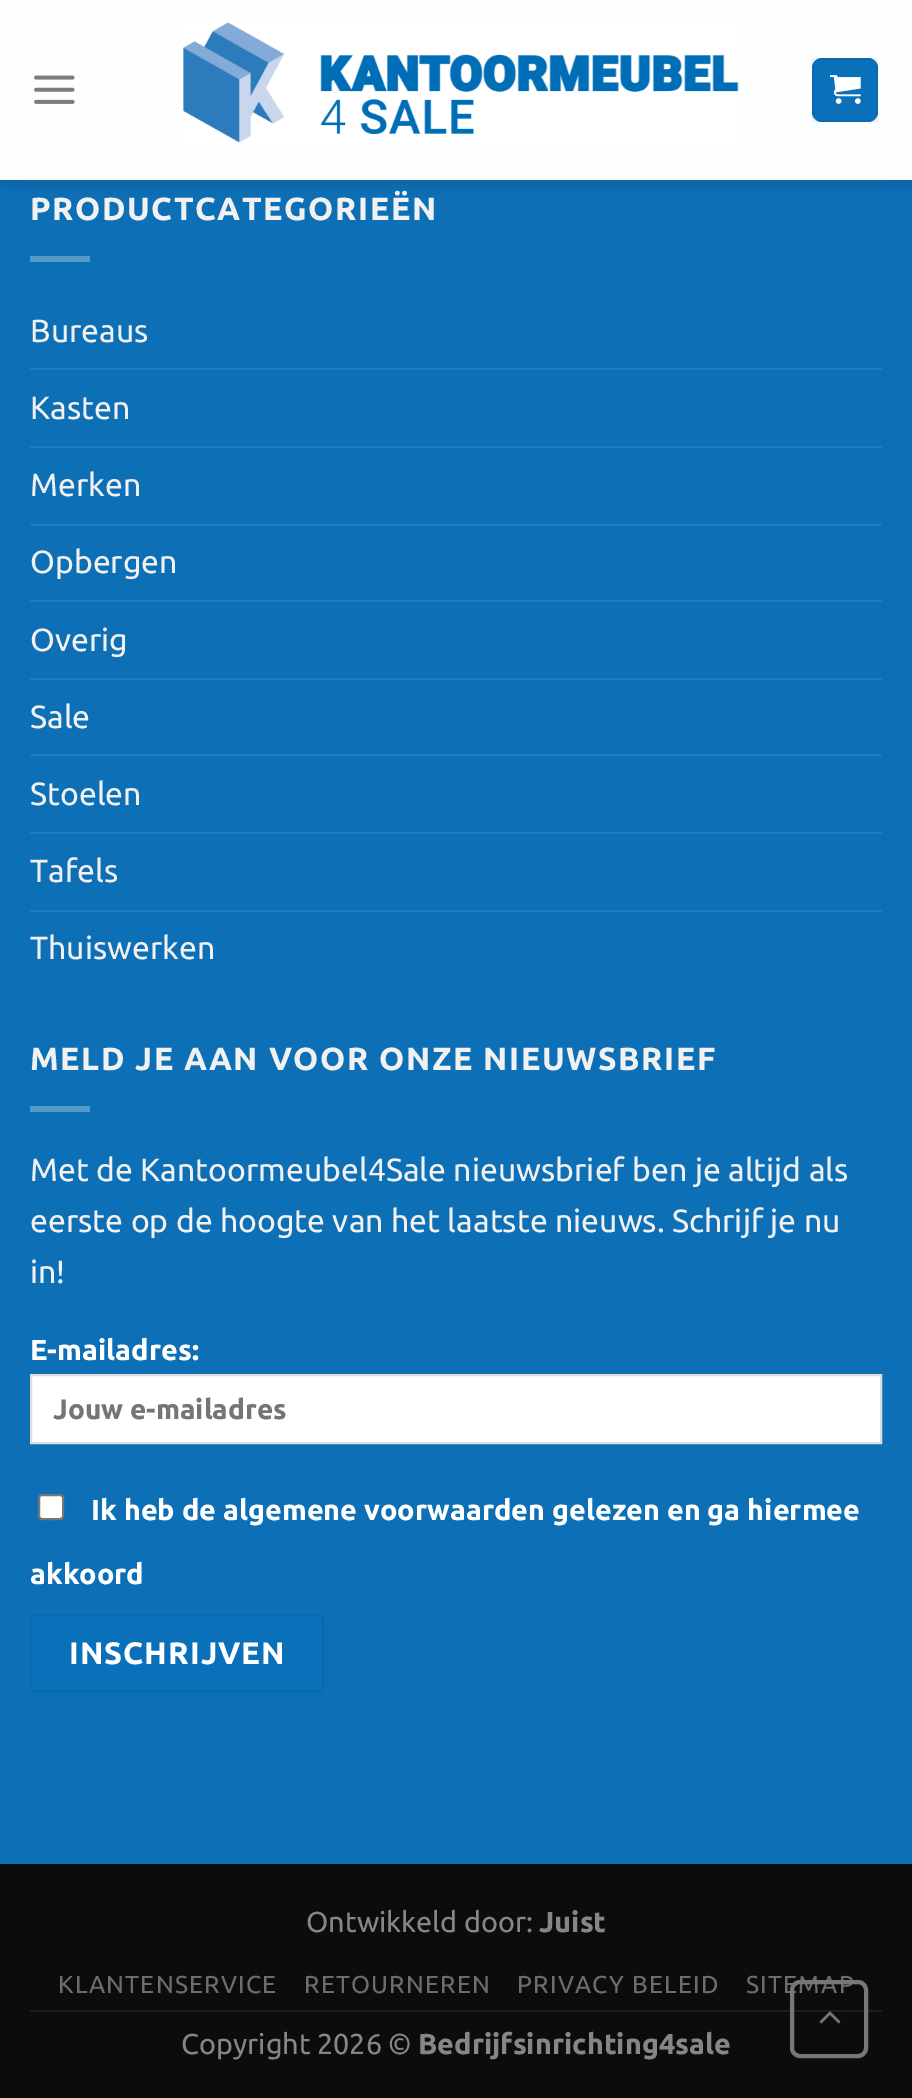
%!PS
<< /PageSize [912 2098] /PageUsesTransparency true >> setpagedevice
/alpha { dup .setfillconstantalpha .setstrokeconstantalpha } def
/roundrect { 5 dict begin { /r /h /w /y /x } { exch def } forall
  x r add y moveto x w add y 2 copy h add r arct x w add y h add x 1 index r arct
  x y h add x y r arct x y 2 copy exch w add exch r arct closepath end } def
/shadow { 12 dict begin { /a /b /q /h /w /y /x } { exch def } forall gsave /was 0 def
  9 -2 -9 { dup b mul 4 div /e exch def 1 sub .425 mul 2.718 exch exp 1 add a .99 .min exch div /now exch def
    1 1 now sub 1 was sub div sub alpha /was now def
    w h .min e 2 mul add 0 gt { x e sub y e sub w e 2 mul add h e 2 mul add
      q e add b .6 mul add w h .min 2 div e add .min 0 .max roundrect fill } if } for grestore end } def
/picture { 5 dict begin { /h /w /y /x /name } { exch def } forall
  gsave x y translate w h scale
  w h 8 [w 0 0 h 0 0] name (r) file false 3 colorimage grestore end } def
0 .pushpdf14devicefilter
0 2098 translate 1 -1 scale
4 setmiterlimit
0.051 0.435 0.714 setrgbcolor
0 0 912 2098 rectfill
0 setgray
2 2 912 180 0 10 0.15 shadow
0.992 0.996 0.996 setrgbcolor
0 0 912 180 rectfill
(img1.rgb) 34 75 41 29 picture
(img2.rgb) 183 22 556 121 picture
0.039 0.439 0.729 setrgbcolor
812 58 66 64 10 roundrect fill
0.05 alpha
0 setgray
2 setlinewidth
813 59 64 62 rectstroke
1 alpha
(img3.rgb) 830 75 31 29 picture
0.09 0.408 0.635 setrgbcolor
30 180 852 2 rectfill
/Ubuntu-Bold [32 0 0 -32 0 0] selectfont
0.945 setgray
30 220 moveto 1.6 0 (PRODUCTCATEGORIEËN) ashow
0.337 0.604 0.8 setrgbcolor
30 256 60 6 rectfill
/Ubuntu-Regular [32 0 0 -32 0 0] selectfont
0.945 setgray
30 342 moveto (Bureaus) show
0.125 0.482 0.737 setrgbcolor
30 368 852 2 rectfill
0.945 setgray
30 419 moveto (Kasten) show
0.125 0.482 0.737 setrgbcolor
30 446 852 2 rectfill
0.945 setgray
30 496 moveto (Merken) show
0.125 0.482 0.737 setrgbcolor
30 524 852 2 rectfill
0.945 setgray
30 573 moveto (Opbergen) show
0.125 0.482 0.737 setrgbcolor
30 600 852 2 rectfill
0.945 setgray
30 651 moveto (Overig) show
0.125 0.482 0.737 setrgbcolor
30 678 852 2 rectfill
0.945 setgray
30 728 moveto (Sale) show
0.125 0.482 0.737 setrgbcolor
30 754 852 2 rectfill
0.945 setgray
30 805 moveto (Stoelen) show
0.125 0.482 0.737 setrgbcolor
30 832 852 2 rectfill
0.945 setgray
30 882 moveto (Tafels) show
0.125 0.482 0.737 setrgbcolor
30 910 852 2 rectfill
0.945 setgray
30 959 moveto (Thuiswerken) show
/Ubuntu-Bold [32 0 0 -32 0 0] selectfont
30 1070 moveto 1.6 0 (MELD JE AAN VOOR ONZE NIEUWSBRIEF) ashow
0.337 0.604 0.8 setrgbcolor
30 1106 60 6 rectfill
/Ubuntu-Regular [32 0 0 -32 0 0] selectfont
0.945 setgray
30 1181 moveto (Met de Kantoormeubel4Sale nieuwsbrief ben je altijd als) show
30 1232 moveto (eerste op de hoogte van het laatste nieuws. Schrijf je nu) show
30 1283 moveto (in!) show
/Ubuntu-Bold [28.8 0 0 -28.8 0 0] selectfont
1 setgray
30 1360 moveto (E-mailadres:) show
newpath 31 1375 moveto 881 1375 lineto 881 1443 lineto 31 1443 lineto closepath gsave fill grestore
0.867 setgray
stroke
/Ubuntu-Bold [28 0 0 -28 0 0] selectfont
0.459 setgray
53 1419 moveto (Jouw e-mailadres) show
1 setgray
39 1495 24 24 3 roundrect gsave fill grestore
0.463 setgray
stroke
/Ubuntu-Bold [28.8 0 0 -28.8 0 0] selectfont
1 setgray
91 1520 moveto (Ik heb de algemene voorwaarden gelezen en ga hiermee) show
30 1584 moveto (akkoord) show
0.039 0.439 0.729 setrgbcolor
31 1615 292 76 3 roundrect gsave fill grestore
0.039 0.416 0.694 setrgbcolor
stroke
/Ubuntu-Bold [31 0 0 -31 0 0] selectfont
1 setgray
69 1664 moveto 1 0 (INSCHRIJVEN) ashow
0.047 setgray
0 1864 912 234 rectfill
/Ubuntu-Regular [28.8 0 0 -28.8 0 0] selectfont
0.525 setgray
306 1932 moveto (Ontwikkeld door:) show
/Ubuntu-Bold [28.8 0 0 -28.8 0 0] selectfont
539 1932 moveto (Juist) show
0.11 setgray
30 2010 852 2 rectfill
/Ubuntu-Regular [24.5 0 0 -24.5 0 0] selectfont
0.427 setgray
58 1993 moveto 1.25 0 (KLANTENSERVICE) ashow
304 1993 moveto 1.25 0 (RETOURNEREN) ashow
517 1993 moveto 1.25 0 (PRIVACY BELEID) ashow
746 1993 moveto 1.25 0 (SITEMAP) ashow
/Ubuntu-Regular [28.8 0 0 -28.8 0 0] selectfont
0.525 setgray
181 2054 moveto (Copyright 2026 ©) show
/Ubuntu-Bold [28.8 0 0 -28.8 0 0] selectfont
418 2054 moveto (Bedrijfsinrichting4sale) show
0.467 setgray
4 setlinewidth
792 1982 74 74 8 roundrect stroke
(img4.rgb) 819 2011 22 13 picture
.poppdf14devicefilter showpage
